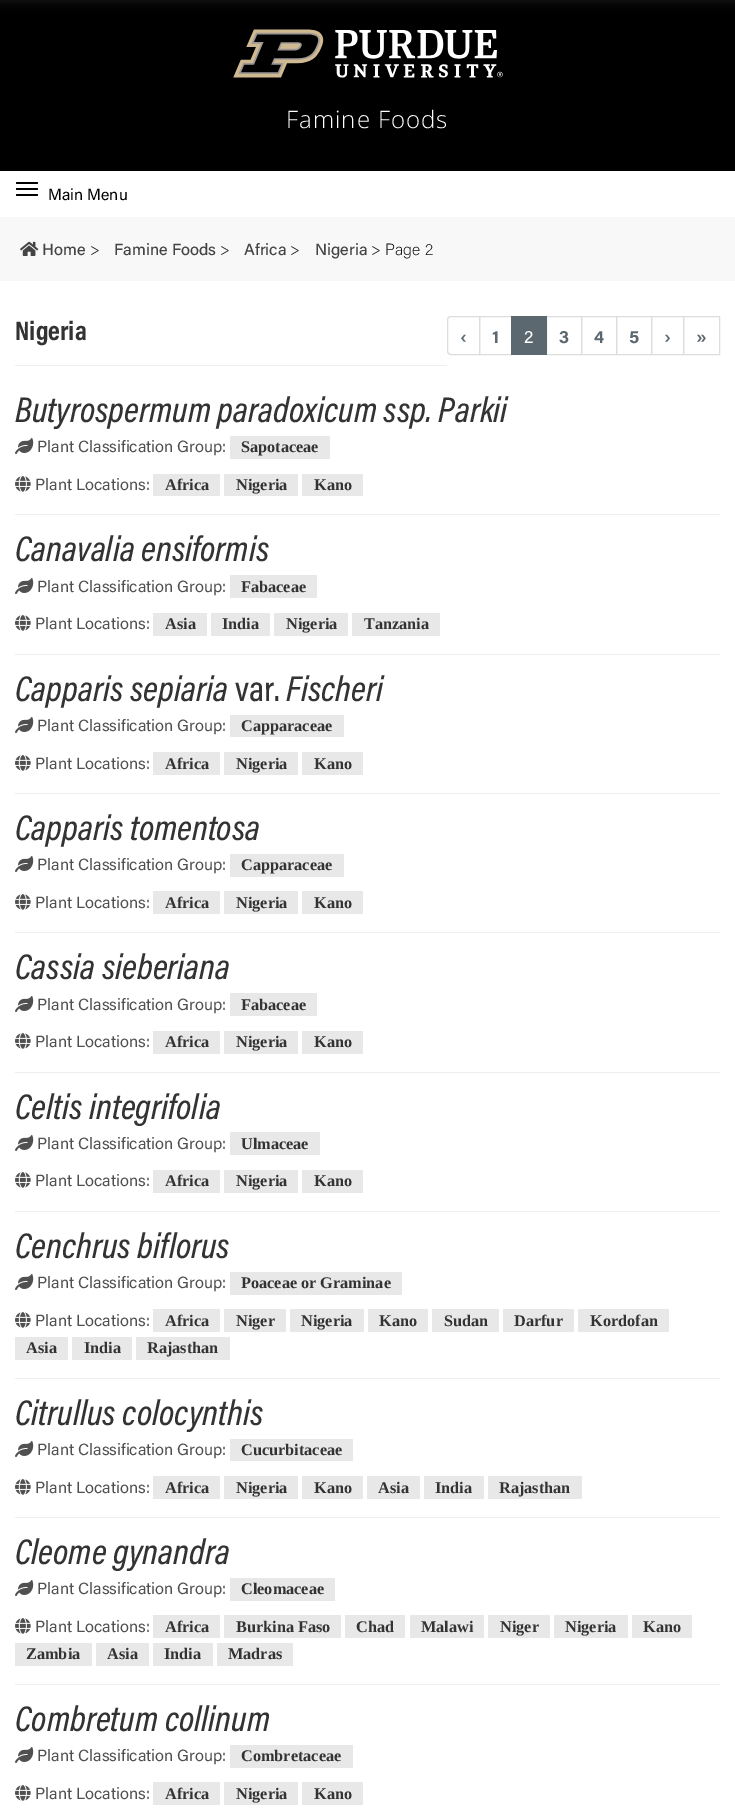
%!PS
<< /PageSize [735 1812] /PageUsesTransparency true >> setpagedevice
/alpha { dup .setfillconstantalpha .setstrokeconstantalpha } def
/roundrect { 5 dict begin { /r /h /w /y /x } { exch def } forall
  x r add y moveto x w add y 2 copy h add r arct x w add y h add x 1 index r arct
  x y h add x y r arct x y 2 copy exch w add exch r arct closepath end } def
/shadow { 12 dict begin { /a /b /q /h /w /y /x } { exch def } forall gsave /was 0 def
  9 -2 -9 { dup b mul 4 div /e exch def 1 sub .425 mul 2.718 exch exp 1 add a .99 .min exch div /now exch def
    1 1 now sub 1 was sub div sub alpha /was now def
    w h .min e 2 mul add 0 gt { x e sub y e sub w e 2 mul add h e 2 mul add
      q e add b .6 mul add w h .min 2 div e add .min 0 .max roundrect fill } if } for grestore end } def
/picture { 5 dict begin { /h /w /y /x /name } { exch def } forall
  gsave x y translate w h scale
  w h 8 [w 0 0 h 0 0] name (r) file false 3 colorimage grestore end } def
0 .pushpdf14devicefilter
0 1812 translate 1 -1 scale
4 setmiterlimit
1 setgray
0 0 735 1812 rectfill
0 setgray
0 0 735 171 rectfill
0.118 setgray
0 -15 735 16 0 5 1 shadow
(img1.rgb) 233 29 270 49 picture
/OpenSans-Light [24 0 0 -24 0 0] selectfont
1 setgray
286 128 moveto 1 0 (Famine Foods) ashow
0 setgray
16 182 22 2 1 roundrect fill
16 188 22 2 1 roundrect fill
/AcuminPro-Regular [16 0 0 -16 0 0] selectfont
48 200 moveto (Main Menu) show
16 194 22 2 1 roundrect fill
0.973 setgray
0 217 735 64 rectfill
(img2.rgb) 20 241 19 15 picture
/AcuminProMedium-Medium [16.25 0 0 -16.25 0 0] selectfont
0.267 setgray
42 255 moveto (Home) show
/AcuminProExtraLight-ExtraLight [16.25 0 0 -16.25 0 0] selectfont
0.075 0.071 0.071 setrgbcolor
90 255 moveto (>) show
/AcuminProMedium-Medium [16.25 0 0 -16.25 0 0] selectfont
0.267 setgray
114 255 moveto (Famine Foods) show
/AcuminProExtraLight-ExtraLight [16.25 0 0 -16.25 0 0] selectfont
0.075 0.071 0.071 setrgbcolor
220 255 moveto (>) show
/AcuminProMedium-Medium [16.25 0 0 -16.25 0 0] selectfont
0.267 setgray
244 255 moveto (Africa) show
/AcuminProExtraLight-ExtraLight [16.25 0 0 -16.25 0 0] selectfont
0.075 0.071 0.071 setrgbcolor
290 255 moveto (>) show
/AcuminProMedium-Medium [16.25 0 0 -16.25 0 0] selectfont
0.267 setgray
315 255 moveto (Nigeria) show
/AcuminProExtraLight-ExtraLight [16.25 0 0 -16.25 0 0] selectfont
0.075 0.071 0.071 setrgbcolor
371 255 moveto (> Page 2) show
/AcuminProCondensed-Bold [27 0 0 -27 0 0] selectfont
0.2 setgray
15 340 moveto (Nigeria) show
0.867 setgray
newpath 451 316.5 moveto 479.5 316.5 lineto 479.5 354.5 lineto 451 354.5 lineto 449 354.5 447.5 353 447.5 351 curveto 447.5 320 lineto 447.5 318 449 316.5 451 316.5 curveto closepath stroke
/AcuminPro-Bold [18 0 0 -18 0 0] selectfont
0.357 0.408 0.439 setrgbcolor
460 343 moveto (‹) show
0.867 setgray
479.5 316.5 32 38 rectstroke
0.357 0.408 0.439 setrgbcolor
492 343 moveto (1) show
0.867 setgray
546.5 316.5 35 38 rectstroke
0.357 0.408 0.439 setrgbcolor
511 316 36 39 rectfill
/AcuminPro-Regular [18 0 0 -18 0 0] selectfont
1 setgray
524 343 moveto (2) show
/AcuminPro-Bold [18 0 0 -18 0 0] selectfont
0.357 0.408 0.439 setrgbcolor
559 343 moveto (3) show
0.867 setgray
581.5 316.5 35 38 rectstroke
0.357 0.408 0.439 setrgbcolor
594 343 moveto (4) show
0.867 setgray
616.5 316.5 35 38 rectstroke
0.357 0.408 0.439 setrgbcolor
629 343 moveto (5) show
0.867 setgray
651.5 316.5 32 38 rectstroke
0.357 0.408 0.439 setrgbcolor
664 343 moveto (›) show
0.867 setgray
683.5 316.5 36 38 rectstroke
0.357 0.408 0.439 setrgbcolor
696 343 moveto (») show
0.933 setgray
15 365 432 1 rectfill
/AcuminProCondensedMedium-MediumItalic [36 0 0 -36 0 0] selectfont
0.2 setgray
15 422 moveto (Butyrospermum paradoxicum ssp. Parkii) show
(img3.rgb) 15 437 19 17 picture
/AcuminPro-Regular [16.25 0 0 -16.25 0 0] selectfont
0.314 setgray
37 452 moveto (Plant Classification Group:) show
0.91 setgray
230 436 100 23 rectfill
/LiberationSerif-Bold [16.25 0 0 -16.25 0 0] selectfont
0.2 setgray
241 452 moveto (Sapotaceae) show
(img4.rgb) 15 476 16 16 picture
/AcuminPro-Regular [16.25 0 0 -16.25 0 0] selectfont
0.314 setgray
35 490 moveto (Plant Locations:) show
0.91 setgray
153 474 67 22 rectfill
/LiberationSerif-Bold [16.25 0 0 -16.25 0 0] selectfont
0.2 setgray
165 490 moveto (Africa) show
0.91 setgray
224 474 74 22 rectfill
0.2 setgray
236 490 moveto (Nigeria) show
0.91 setgray
302 474 61 22 rectfill
0.2 setgray
314 490 moveto (Kano) show
0.933 setgray
15 514 705 1 rectfill
/AcuminProCondensedMedium-MediumItalic [36 0 0 -36 0 0] selectfont
0.2 setgray
15 561 moveto (Canavalia ensiformis) show
(img3.rgb) 15 577 19 17 picture
/AcuminPro-Regular [16.25 0 0 -16.25 0 0] selectfont
0.314 setgray
37 592 moveto (Plant Classification Group:) show
0.91 setgray
230 575 87 23 rectfill
/LiberationSerif-Bold [16.25 0 0 -16.25 0 0] selectfont
0.2 setgray
241 592 moveto (Fabaceae) show
(img4.rgb) 15 615 16 16 picture
/AcuminPro-Regular [16.25 0 0 -16.25 0 0] selectfont
0.314 setgray
35 629 moveto (Plant Locations:) show
0.91 setgray
153 613 54 23 rectfill
/LiberationSerif-Bold [16.25 0 0 -16.25 0 0] selectfont
0.2 setgray
165 629 moveto (Asia) show
0.91 setgray
211 613 59 23 rectfill
0.2 setgray
222 629 moveto (India) show
0.91 setgray
274 613 74 23 rectfill
0.2 setgray
286 629 moveto (Nigeria) show
0.91 setgray
352 613 88 23 rectfill
0.2 setgray
364 629 moveto (Tanzania) show
0.933 setgray
15 654 705 1 rectfill
/AcuminProCondensedMedium-MediumItalic [36 0 0 -36 0 0] selectfont
0.2 setgray
15 701 moveto (Capparis sepiaria) show
/AcuminProCondensedMedium-Medium [36 0 0 -36 0 0] selectfont
235 701 moveto (var.) show
/AcuminProCondensedMedium-MediumItalic [36 0 0 -36 0 0] selectfont
286 701 moveto (Fischeri) show
(img3.rgb) 15 716 19 17 picture
/AcuminPro-Regular [16.25 0 0 -16.25 0 0] selectfont
0.314 setgray
37 731 moveto (Plant Classification Group:) show
0.91 setgray
230 715 114 22 rectfill
/LiberationSerif-Bold [16.25 0 0 -16.25 0 0] selectfont
0.2 setgray
241 731 moveto (Capparaceae) show
(img4.rgb) 15 755 16 16 picture
/AcuminPro-Regular [16.25 0 0 -16.25 0 0] selectfont
0.314 setgray
35 769 moveto (Plant Locations:) show
0.91 setgray
153 752 67 23 rectfill
/LiberationSerif-Bold [16.25 0 0 -16.25 0 0] selectfont
0.2 setgray
165 769 moveto (Africa) show
0.91 setgray
224 752 74 23 rectfill
0.2 setgray
236 769 moveto (Nigeria) show
0.91 setgray
302 752 61 23 rectfill
0.2 setgray
314 769 moveto (Kano) show
0.933 setgray
15 793 705 1 rectfill
/AcuminProCondensedMedium-MediumItalic [36 0 0 -36 0 0] selectfont
0.2 setgray
15 840 moveto (Capparis tomentosa) show
(img3.rgb) 15 855 19 17 picture
/AcuminPro-Regular [16.25 0 0 -16.25 0 0] selectfont
0.314 setgray
37 870 moveto (Plant Classification Group:) show
0.91 setgray
230 854 114 23 rectfill
/LiberationSerif-Bold [16.25 0 0 -16.25 0 0] selectfont
0.2 setgray
241 870 moveto (Capparaceae) show
(img4.rgb) 15 894 16 16 picture
/AcuminPro-Regular [16.25 0 0 -16.25 0 0] selectfont
0.314 setgray
35 908 moveto (Plant Locations:) show
0.91 setgray
153 891 67 23 rectfill
/LiberationSerif-Bold [16.25 0 0 -16.25 0 0] selectfont
0.2 setgray
165 908 moveto (Africa) show
0.91 setgray
224 891 74 23 rectfill
0.2 setgray
236 908 moveto (Nigeria) show
0.91 setgray
302 891 61 23 rectfill
0.2 setgray
314 908 moveto (Kano) show
0.933 setgray
15 932 705 1 rectfill
/AcuminProCondensedMedium-MediumItalic [36 0 0 -36 0 0] selectfont
0.2 setgray
15 979 moveto (Cassia sieberiana) show
(img3.rgb) 15 995 19 17 picture
/AcuminPro-Regular [16.25 0 0 -16.25 0 0] selectfont
0.314 setgray
37 1010 moveto (Plant Classification Group:) show
0.91 setgray
230 993 87 23 rectfill
/LiberationSerif-Bold [16.25 0 0 -16.25 0 0] selectfont
0.2 setgray
241 1010 moveto (Fabaceae) show
(img4.rgb) 15 1033 16 16 picture
/AcuminPro-Regular [16.25 0 0 -16.25 0 0] selectfont
0.314 setgray
35 1047 moveto (Plant Locations:) show
0.91 setgray
153 1031 67 23 rectfill
/LiberationSerif-Bold [16.25 0 0 -16.25 0 0] selectfont
0.2 setgray
165 1047 moveto (Africa) show
0.91 setgray
224 1031 74 23 rectfill
0.2 setgray
236 1047 moveto (Nigeria) show
0.91 setgray
302 1031 61 23 rectfill
0.2 setgray
314 1047 moveto (Kano) show
0.933 setgray
15 1072 705 1 rectfill
/AcuminProCondensedMedium-MediumItalic [36 0 0 -36 0 0] selectfont
0.2 setgray
15 1119 moveto (Celtis integrifolia) show
(img3.rgb) 15 1134 19 17 picture
/AcuminPro-Regular [16.25 0 0 -16.25 0 0] selectfont
0.314 setgray
37 1149 moveto (Plant Classification Group:) show
0.91 setgray
230 1132 90 23 rectfill
/LiberationSerif-Bold [16.25 0 0 -16.25 0 0] selectfont
0.2 setgray
241 1149 moveto (Ulmaceae) show
(img4.rgb) 15 1172 16 16 picture
/AcuminPro-Regular [16.25 0 0 -16.25 0 0] selectfont
0.314 setgray
35 1186 moveto (Plant Locations:) show
0.91 setgray
153 1170 67 23 rectfill
/LiberationSerif-Bold [16.25 0 0 -16.25 0 0] selectfont
0.2 setgray
165 1186 moveto (Africa) show
0.91 setgray
224 1170 74 23 rectfill
0.2 setgray
236 1186 moveto (Nigeria) show
0.91 setgray
302 1170 61 23 rectfill
0.2 setgray
314 1186 moveto (Kano) show
0.933 setgray
15 1211 705 1 rectfill
/AcuminProCondensedMedium-MediumItalic [36 0 0 -36 0 0] selectfont
0.2 setgray
15 1258 moveto (Cenchrus biflorus) show
(img3.rgb) 15 1273 19 17 picture
/AcuminPro-Regular [16.25 0 0 -16.25 0 0] selectfont
0.314 setgray
37 1288 moveto (Plant Classification Group:) show
0.91 setgray
230 1272 172 23 rectfill
/LiberationSerif-Bold [16.25 0 0 -16.25 0 0] selectfont
0.2 setgray
241 1288 moveto (Poaceae or Graminae) show
(img4.rgb) 15 1312 16 16 picture
/AcuminPro-Regular [16.25 0 0 -16.25 0 0] selectfont
0.314 setgray
35 1326 moveto (Plant Locations:) show
0.91 setgray
153 1309 67 23 rectfill
/LiberationSerif-Bold [16.25 0 0 -16.25 0 0] selectfont
0.2 setgray
165 1326 moveto (Africa) show
0.91 setgray
224 1309 62 23 rectfill
0.2 setgray
236 1326 moveto (Niger) show
0.91 setgray
290 1309 74 23 rectfill
0.2 setgray
301 1326 moveto (Nigeria) show
0.91 setgray
368 1309 60 23 rectfill
0.2 setgray
379 1326 moveto (Kano) show
0.91 setgray
432 1309 67 23 rectfill
0.2 setgray
444 1326 moveto (Sudan) show
0.91 setgray
503 1309 71 23 rectfill
0.2 setgray
514 1326 moveto (Darfur) show
0.91 setgray
578 1309 91 23 rectfill
0.2 setgray
590 1326 moveto (Kordofan) show
0.91 setgray
15 1337 53 23 rectfill
0.2 setgray
26 1353 moveto (Asia) show
0.91 setgray
72 1337 60 23 rectfill
0.2 setgray
84 1353 moveto (India) show
0.91 setgray
136 1337 94 23 rectfill
0.2 setgray
147 1353 moveto (Rajasthan) show
0.933 setgray
15 1378 705 1 rectfill
/AcuminProCondensedMedium-MediumItalic [36 0 0 -36 0 0] selectfont
0.2 setgray
15 1425 moveto (Citrullus colocynthis) show
(img3.rgb) 15 1440 19 17 picture
/AcuminPro-Regular [16.25 0 0 -16.25 0 0] selectfont
0.314 setgray
37 1455 moveto (Plant Classification Group:) show
0.91 setgray
230 1439 123 22 rectfill
/LiberationSerif-Bold [16.25 0 0 -16.25 0 0] selectfont
0.2 setgray
241 1455 moveto (Cucurbitaceae) show
(img4.rgb) 15 1479 16 16 picture
/AcuminPro-Regular [16.25 0 0 -16.25 0 0] selectfont
0.314 setgray
35 1493 moveto (Plant Locations:) show
0.91 setgray
153 1476 67 23 rectfill
/LiberationSerif-Bold [16.25 0 0 -16.25 0 0] selectfont
0.2 setgray
165 1493 moveto (Africa) show
0.91 setgray
224 1476 74 23 rectfill
0.2 setgray
236 1493 moveto (Nigeria) show
0.91 setgray
302 1476 61 23 rectfill
0.2 setgray
314 1493 moveto (Kano) show
0.91 setgray
367 1476 53 23 rectfill
0.2 setgray
378 1493 moveto (Asia) show
0.91 setgray
424 1476 60 23 rectfill
0.2 setgray
435 1493 moveto (India) show
0.91 setgray
488 1476 94 23 rectfill
0.2 setgray
499 1493 moveto (Rajasthan) show
0.933 setgray
15 1517 705 1 rectfill
/AcuminProCondensedMedium-MediumItalic [36 0 0 -36 0 0] selectfont
0.2 setgray
15 1564 moveto (Cleome gynandra) show
(img3.rgb) 15 1579 19 17 picture
/AcuminPro-Regular [16.25 0 0 -16.25 0 0] selectfont
0.314 setgray
37 1594 moveto (Plant Classification Group:) show
0.91 setgray
230 1578 105 23 rectfill
/LiberationSerif-Bold [16.25 0 0 -16.25 0 0] selectfont
0.2 setgray
241 1594 moveto (Cleomaceae) show
(img4.rgb) 15 1618 16 16 picture
/AcuminPro-Regular [16.25 0 0 -16.25 0 0] selectfont
0.314 setgray
35 1632 moveto (Plant Locations:) show
0.91 setgray
153 1615 67 23 rectfill
/LiberationSerif-Bold [16.25 0 0 -16.25 0 0] selectfont
0.2 setgray
165 1632 moveto (Africa) show
0.91 setgray
224 1615 117 23 rectfill
0.2 setgray
236 1632 moveto (Burkina Faso) show
0.91 setgray
345 1615 60 23 rectfill
0.2 setgray
356 1632 moveto (Chad) show
0.91 setgray
410 1615 74 23 rectfill
0.2 setgray
421 1632 moveto (Malawi) show
0.91 setgray
488 1615 62 23 rectfill
0.2 setgray
500 1632 moveto (Niger) show
0.91 setgray
554 1615 74 23 rectfill
0.2 setgray
565 1632 moveto (Nigeria) show
0.91 setgray
632 1615 60 23 rectfill
0.2 setgray
643 1632 moveto (Kano) show
0.91 setgray
15 1643 77 23 rectfill
0.2 setgray
26 1659 moveto (Zambia) show
0.91 setgray
96 1643 53 23 rectfill
0.2 setgray
107 1659 moveto (Asia) show
0.91 setgray
153 1643 60 23 rectfill
0.2 setgray
164 1659 moveto (India) show
0.91 setgray
217 1643 76 23 rectfill
0.2 setgray
228 1659 moveto (Madras) show
0.933 setgray
15 1684 705 1 rectfill
/AcuminProCondensedMedium-MediumItalic [36 0 0 -36 0 0] selectfont
0.2 setgray
15 1731 moveto (Combretum collinum) show
(img3.rgb) 15 1746 19 17 picture
/AcuminPro-Regular [16.25 0 0 -16.25 0 0] selectfont
0.314 setgray
37 1761 moveto (Plant Classification Group:) show
0.91 setgray
230 1745 123 23 rectfill
/LiberationSerif-Bold [16.25 0 0 -16.25 0 0] selectfont
0.2 setgray
241 1761 moveto (Combretaceae) show
(img4.rgb) 15 1785 16 16 picture
/AcuminPro-Regular [16.25 0 0 -16.25 0 0] selectfont
0.314 setgray
35 1799 moveto (Plant Locations:) show
0.91 setgray
153 1782 67 23 rectfill
/LiberationSerif-Bold [16.25 0 0 -16.25 0 0] selectfont
0.2 setgray
165 1799 moveto (Africa) show
0.91 setgray
224 1782 74 23 rectfill
0.2 setgray
236 1799 moveto (Nigeria) show
0.91 setgray
302 1782 61 23 rectfill
0.2 setgray
314 1799 moveto (Kano) show
.poppdf14devicefilter showpage
